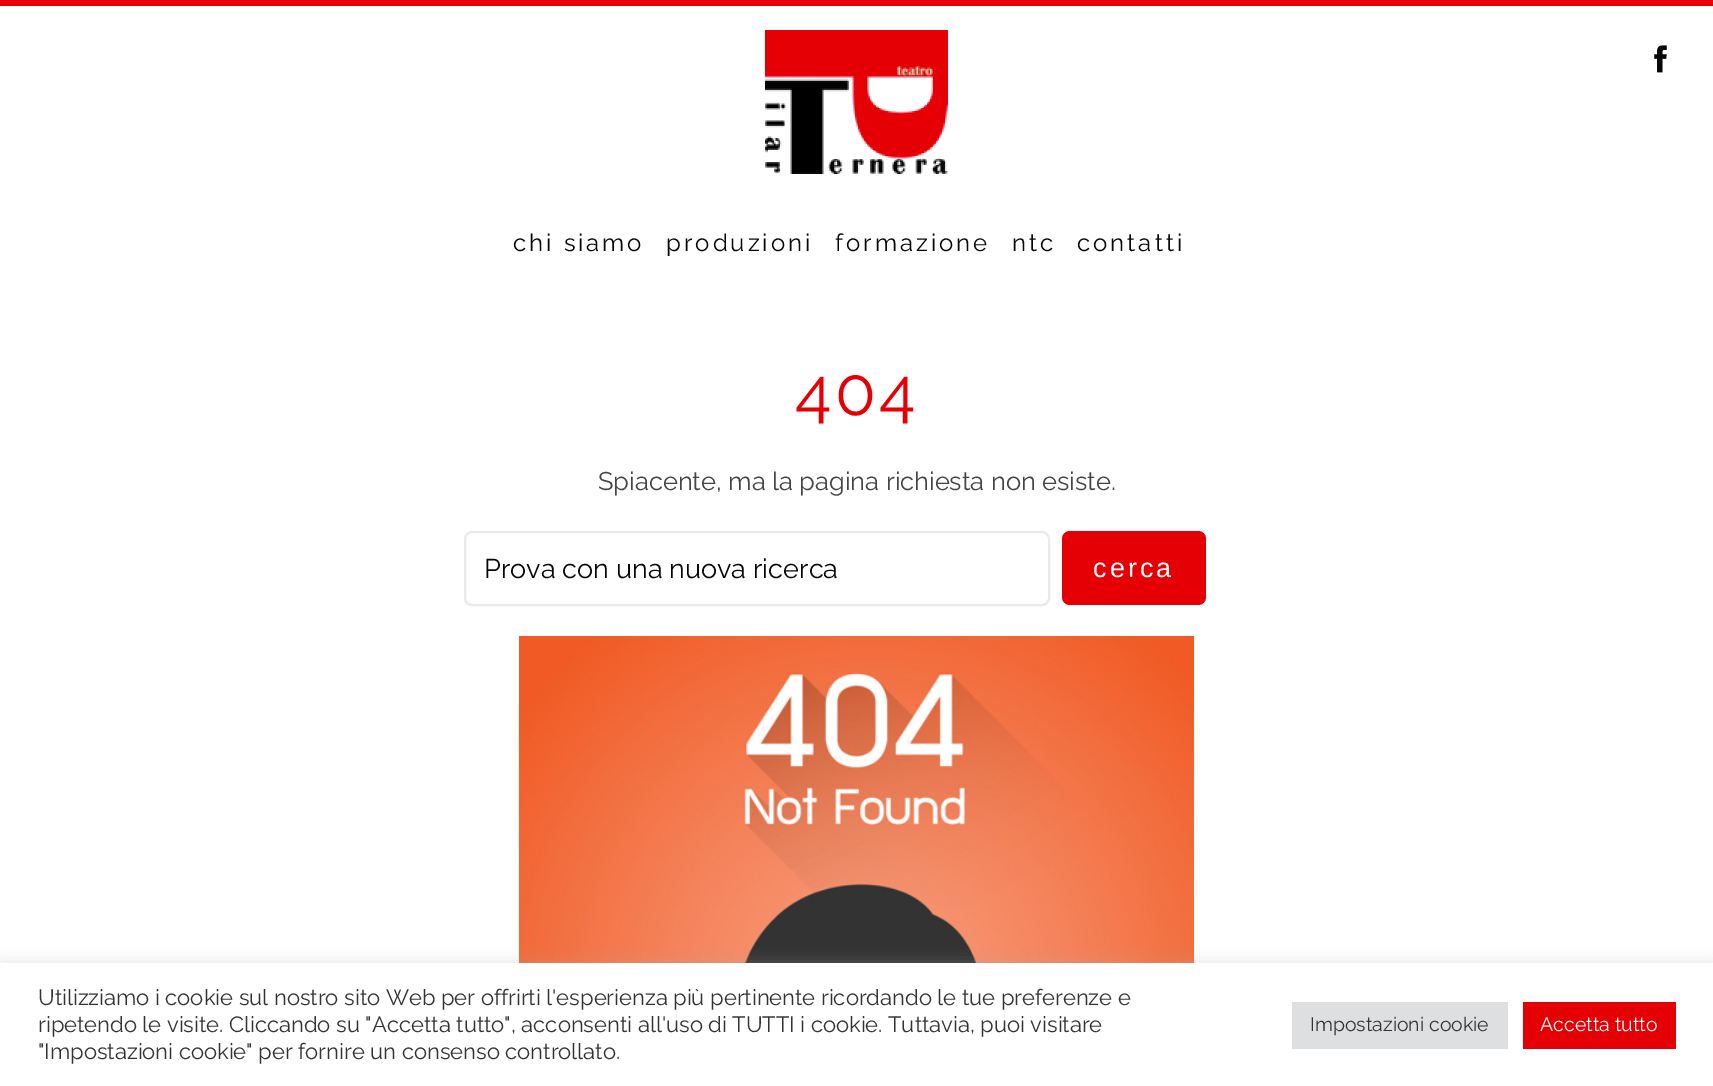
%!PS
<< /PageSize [1713 1086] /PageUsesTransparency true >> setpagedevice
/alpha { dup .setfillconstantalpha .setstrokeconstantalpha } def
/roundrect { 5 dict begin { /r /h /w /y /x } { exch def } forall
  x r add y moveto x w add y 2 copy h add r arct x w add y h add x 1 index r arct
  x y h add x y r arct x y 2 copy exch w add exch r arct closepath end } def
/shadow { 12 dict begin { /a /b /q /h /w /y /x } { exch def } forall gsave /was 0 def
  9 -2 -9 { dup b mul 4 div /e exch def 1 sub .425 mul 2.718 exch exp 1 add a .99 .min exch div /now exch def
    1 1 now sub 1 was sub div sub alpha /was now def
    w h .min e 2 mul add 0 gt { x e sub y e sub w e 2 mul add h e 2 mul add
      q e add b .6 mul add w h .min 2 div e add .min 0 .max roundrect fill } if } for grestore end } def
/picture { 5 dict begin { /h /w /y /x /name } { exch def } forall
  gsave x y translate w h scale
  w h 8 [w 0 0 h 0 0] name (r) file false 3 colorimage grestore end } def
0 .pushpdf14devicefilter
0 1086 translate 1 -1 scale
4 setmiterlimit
1 setgray
0 0 1713 1086 rectfill
0.898 0 0.024 setrgbcolor
0 0 1713 6 rectfill
(img1.rgb) 765 30 183 144 picture
(img2.rgb) 1654 45 13 28 picture
/Raleway-Regular [24 0 0 -24 0 0] selectfont
0.027 setgray
513 251 moveto 3 0 (chi siamo) ashow
666 251 moveto 3 0 (produzioni) ashow
835 251 moveto 3 0 (formazione) ashow
1012 251 moveto 3 0 (ntc) ashow
1077 251 moveto 3 0 (contatti) ashow
/Raleway-Regular [67 0 0 -67 0 0] selectfont
0.898 0 0.024 setrgbcolor
795 415 moveto 3 0 (404) ashow
/Raleway-Regular [25.5 0 0 -25.5 0 0] selectfont
0.267 setgray
598 490 moveto (Spiacente, ma la pagina richiesta non esiste.) show
0.918 setgray
2 setlinewidth
465 532 584 73 7 roundrect stroke
/Raleway-Regular [27 0 0 -27 0 0] selectfont
0.027 setgray
484 578 moveto (Prova con una nuova ricerca) show
0.898 0 0.024 setrgbcolor
1062 531 144 74 8 roundrect fill
/LiberationSans-Regular [27 0 0 -27 0 0] selectfont
1 setgray
1093 577 moveto 3 0 (cerca) ashow
(img3.rgb) 519 636 675 327 picture
0.675 0.671 0.671 setrgbcolor
0 962 1713 123 0 7.5 0.3 shadow
1 setgray
0 963 1713 123 rectfill
/Raleway-Regular [22 0 0 -22 0 0] selectfont
0.2 setgray
38 1005 moveto (Utilizziamo i cookie sul nostro sito Web per offrirti l'esperienza più pertinente ricordando le tue preferenze e) show
38 1032 moveto (ripetendo le visite. Cliccando su "Accetta tutto", acconsenti all'uso di TUTTI i cookie. Tuttavia, puoi visitare) show
38 1059 moveto ("Impostazioni cookie" per fornire un consenso controllato.) show
0.871 0.875 0.878 setrgbcolor
1292 1002 216 47 rectfill
/Raleway-Regular [19.5 0 0 -19.5 0 0] selectfont
0.2 setgray
1310 1031 moveto (Impostazioni cookie) show
0.898 0 0.024 setrgbcolor
1523 1002 153 47 rectfill
1 setgray
1540 1031 moveto (Accetta tutto) show
.poppdf14devicefilter showpage
